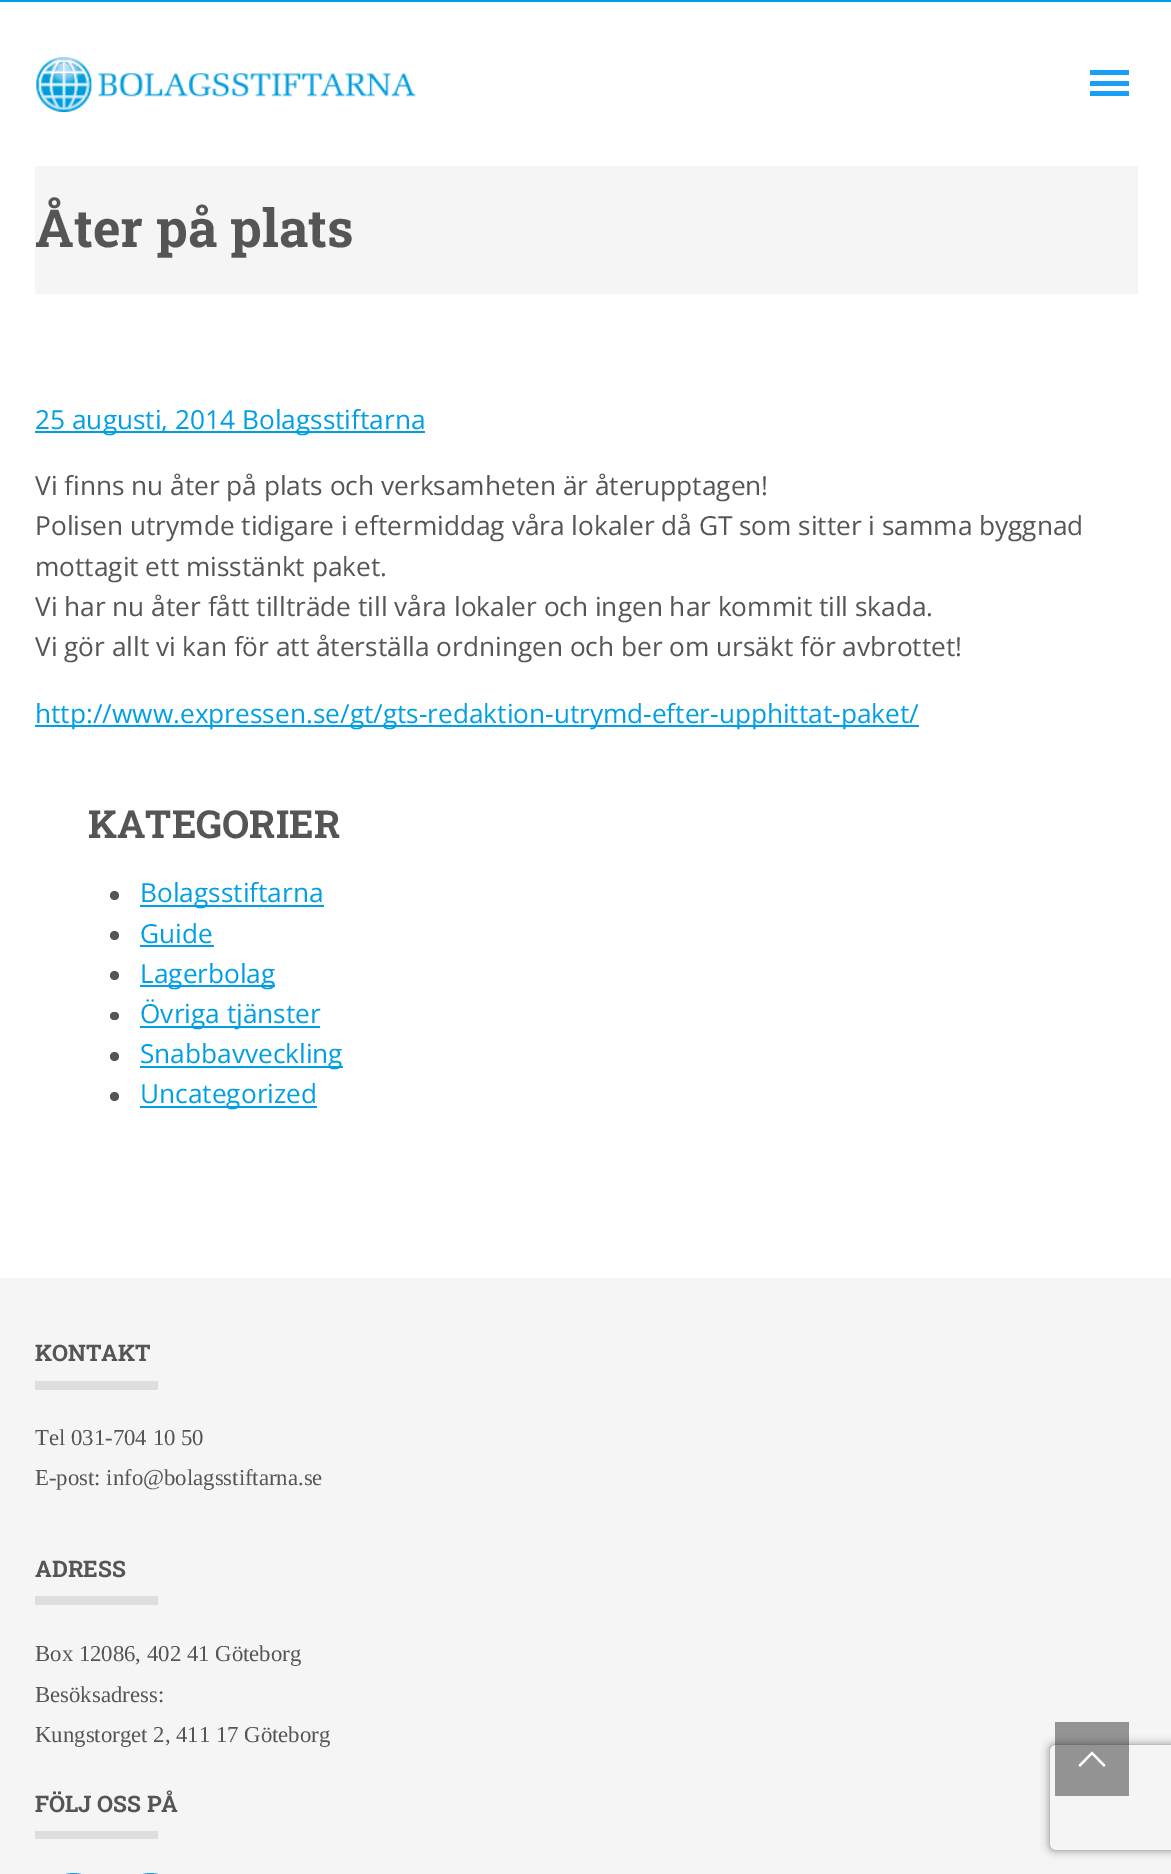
%!PS
<< /PageSize [1171 1874] /PageUsesTransparency true >> setpagedevice
/alpha { dup .setfillconstantalpha .setstrokeconstantalpha } def
/roundrect { 5 dict begin { /r /h /w /y /x } { exch def } forall
  x r add y moveto x w add y 2 copy h add r arct x w add y h add x 1 index r arct
  x y h add x y r arct x y 2 copy exch w add exch r arct closepath end } def
/shadow { 12 dict begin { /a /b /q /h /w /y /x } { exch def } forall gsave /was 0 def
  9 -2 -9 { dup b mul 4 div /e exch def 1 sub .425 mul 2.718 exch exp 1 add a .99 .min exch div /now exch def
    1 1 now sub 1 was sub div sub alpha /was now def
    w h .min e 2 mul add 0 gt { x e sub y e sub w e 2 mul add h e 2 mul add
      q e add b .6 mul add w h .min 2 div e add .min 0 .max roundrect fill } if } for grestore end } def
/picture { 5 dict begin { /h /w /y /x /name } { exch def } forall
  gsave x y translate w h scale
  w h 8 [w 0 0 h 0 0] name (r) file false 3 colorimage grestore end } def
0 .pushpdf14devicefilter
0 1874 translate 1 -1 scale
4 setmiterlimit
1 setgray
0 0 1171 1874 rectfill
0 0.624 0.89 setrgbcolor
0 0 1171 2 rectfill
(img1.rgb) 36 57 380 55 picture
0.098 0.624 0.965 setrgbcolor
1090 70 39 5 rectfill
1090 81 39 5 rectfill
1090 91 39 5 rectfill
0.961 setgray
35 166 1103 128 rectfill
/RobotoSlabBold-Bold [52.5 0 0 -52.5 0 0] selectfont
0.333 setgray
35 247 moveto (Åter på plats) show
0 0.624 0.89 setrgbcolor
35 431 390 2 rectfill
/OpenSans-Regular [26.25 0 0 -26.25 0 0] selectfont
35 429 moveto (25 augusti, 2014 Bolagsstiftarna) show
0.333 setgray
35 495 moveto (Vi finns nu åter på plats och verksamheten är återupptagen!) show
35 535 moveto (Polisen utrymde tidigare i eftermiddag våra lokaler då GT som sitter i samma byggnad) show
35 576 moveto (mottagit ett misstänkt paket.) show
35 616 moveto (Vi har nu åter fått tillträde till våra lokaler och ingen har kommit till skada.) show
35 656 moveto (Vi gör allt vi kan för att återställa ordningen och ber om ursäkt för avbrottet!) show
0 0.624 0.89 setrgbcolor
35 725 884 2 rectfill
35 723 moveto (http://www.expressen.se/gt/gts-redaktion-utrymd-efter-upphittat-paket/) show
/RobotoSlabBold-Bold [38.5 0 0 -38.5 0 0] selectfont
0.333 setgray
88 838 moveto (KATEGORIER) show
newpath 114.5 895.5 4.5 0 360 arc closepath fill
0 0.624 0.89 setrgbcolor
140 905 184 2 rectfill
/OpenSans-Regular [26.25 0 0 -26.25 0 0] selectfont
140 902 moveto (Bolagsstiftarna) show
0.333 setgray
newpath 114.5 935.5 4.5 0 360 arc closepath fill
0 0.624 0.89 setrgbcolor
140 943 moveto (Guide) show
140 945 74 2 rectfill
0.333 setgray
newpath 114.5 975.5 4.5 0 360 arc closepath fill
0 0.624 0.89 setrgbcolor
140 985 135 2 rectfill
140 983 moveto (Lagerbolag) show
0.333 setgray
110 1012 9 8 4 roundrect fill
0 0.624 0.89 setrgbcolor
140 1026 180 2 rectfill
140 1023 moveto (Övriga tjänster) show
0.333 setgray
newpath 114.5 1056.5 4.5 0 360 arc closepath fill
0 0.624 0.89 setrgbcolor
140 1066 203 2 rectfill
140 1063 moveto (Snabbavveckling) show
0.333 setgray
newpath 114.5 1096.5 4.5 0 360 arc closepath fill
0 0.624 0.89 setrgbcolor
140 1106 177 2 rectfill
140 1103 moveto (Uncategorized) show
0.961 setgray
0 1278 1171 596 rectfill
/RobotoSlabBold-Bold [22.75 0 0 -22.75 0 0] selectfont
0.333 setgray
35 1361 moveto (KONTAKT) show
0.871 setgray
35 1381 123 9 rectfill
/LiberationSerif-Regular [22.75 0 0 -22.75 0 0] selectfont
0.333 setgray
35 1445 moveto (Tel 031-704 10 50) show
35 1485 moveto (E-post: info@bolagsstiftarna.se) show
/RobotoSlabBold-Bold [22.75 0 0 -22.75 0 0] selectfont
35 1577 moveto (ADRESS) show
0.871 setgray
35 1596 123 9 rectfill
/LiberationSerif-Regular [22.75 0 0 -22.75 0 0] selectfont
0.333 setgray
35 1661 moveto (Box 12086, 402 41 Göteborg) show
35 1702 moveto (Besöksadress:) show
35 1742 moveto (Kungstorget 2, 411 17 Göteborg) show
/RobotoSlabBold-Bold [22.75 0 0 -22.75 0 0] selectfont
35 1812 moveto (FÖLJ OSS PÅ) show
0.871 setgray
35 1831 123 8 rectfill
0.098 0.624 0.965 setrgbcolor
5 setlinewidth
44.5 1875.5 58 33 29 roundrect stroke
121.5 1875.5 58 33 29 roundrect stroke
gsave
newpath 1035 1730 moveto 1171 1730 lineto 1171 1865 lineto 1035 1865 lineto closepath 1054 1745 moveto 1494 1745 lineto 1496 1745 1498 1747 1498 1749 curveto 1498 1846 lineto 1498 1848 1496 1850 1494 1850 curveto 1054 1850 lineto 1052 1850 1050 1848 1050 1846 curveto 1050 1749 lineto 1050 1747 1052 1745 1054 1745 curveto closepath eoclip newpath
0.502 setgray
1050 1745 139 105 4 4.5 1 shadow
grestore
0.4 alpha
0 setgray
1055 1722 74 74 rectfill
1 alpha
1 setgray
newpath 1092 1751.5 moveto 1078.5 1765 lineto 1080 1767 lineto 1092 1754.5 lineto 1104 1767 lineto 1105.5 1765 lineto closepath fill
.poppdf14devicefilter showpage
